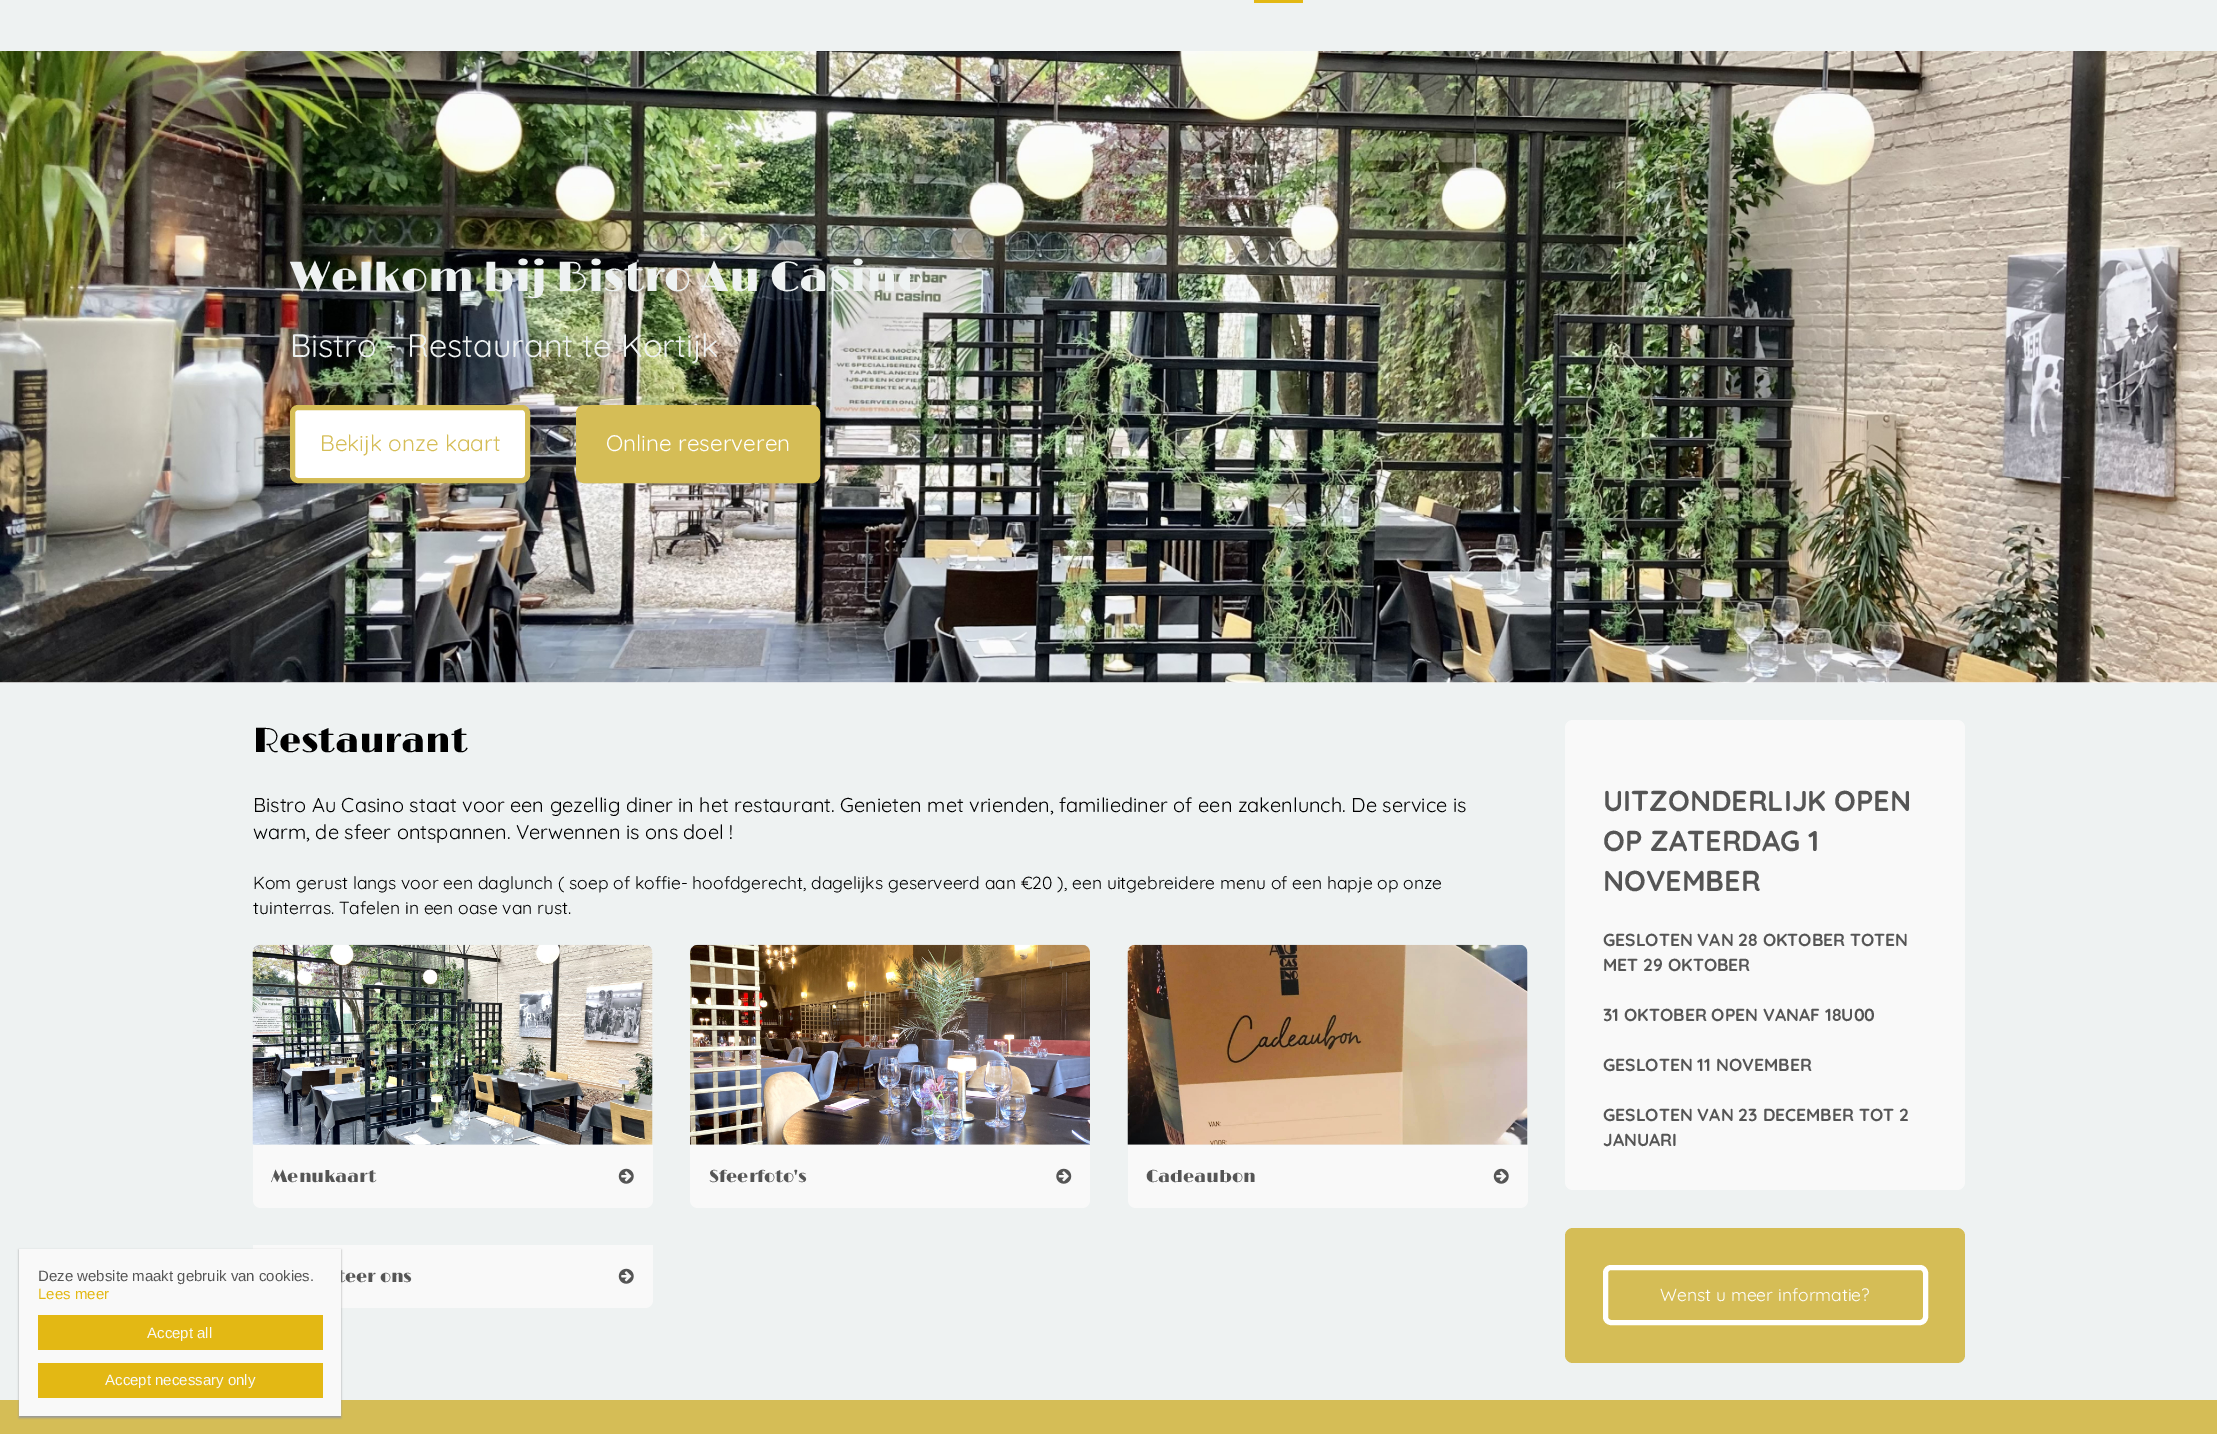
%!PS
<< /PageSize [2217 1434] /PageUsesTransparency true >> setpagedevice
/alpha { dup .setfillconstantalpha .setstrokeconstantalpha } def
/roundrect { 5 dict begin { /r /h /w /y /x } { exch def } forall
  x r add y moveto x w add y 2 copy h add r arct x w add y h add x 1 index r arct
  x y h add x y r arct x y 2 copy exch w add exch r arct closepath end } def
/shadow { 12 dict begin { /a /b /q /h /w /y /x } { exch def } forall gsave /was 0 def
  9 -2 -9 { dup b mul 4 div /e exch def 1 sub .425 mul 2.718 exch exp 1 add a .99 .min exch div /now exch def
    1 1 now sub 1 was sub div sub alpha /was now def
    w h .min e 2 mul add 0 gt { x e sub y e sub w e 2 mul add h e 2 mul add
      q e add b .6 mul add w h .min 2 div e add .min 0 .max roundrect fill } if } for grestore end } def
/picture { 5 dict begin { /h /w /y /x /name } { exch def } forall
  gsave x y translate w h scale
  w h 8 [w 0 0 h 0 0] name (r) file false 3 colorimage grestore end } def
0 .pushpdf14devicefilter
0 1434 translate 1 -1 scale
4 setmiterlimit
0.933 0.949 0.949 setrgbcolor
0 0 2217 1434 rectfill
0.89 0.722 0.078 setrgbcolor
1254 0 49 3 rectfill
0.976 setgray
0 682 2217 1 rectfill
(img1.rgb) 0 51 2217 632 picture
/Limelight-Light [42.5 0 0 -42.5 0 0] selectfont
0.933 0.949 0.949 setrgbcolor
290 291 moveto (Welkom bij Bistro Au Casino) show
/Quicksand-Regular [32.5 0 0 -32.5 0 0] selectfont
290 357 moveto (Bistro - Restaurant te Kortijk) show
1 setgray
292.5 407.5 235 73 5.5 roundrect gsave fill grestore
0.835 0.741 0.337 setrgbcolor
5 setlinewidth
stroke
/Quicksand-Regular [22.5 0 0 -22.5 0 0] selectfont
320 451 moveto (Bekijk onze kaart) show
578.5 407.5 239 73 5.5 roundrect gsave fill grestore
stroke
1 setgray
606 451 moveto (Online reserveren) show
/Limelight-Light [35 0 0 -35 0 0] selectfont
0 setgray
253 752 moveto (Restaurant) show
/Quicksand-Regular [20 0 0 -20 0 0] selectfont
253 812 moveto (Bistro Au Casino staat voor een gezellig diner in het restaurant. Genieten met vrienden, familiediner of een zakenlunch. De service is) show
253 839 moveto (warm, de sfeer ontspannen. Verwennen is ons doel !) show
/Quicksand-Regular [17.5 0 0 -17.5 0 0] selectfont
253 889 moveto (Kom gerust langs voor een daglunch \( soep of koffie- hoofdgerecht, dagelijks geserveerd aan €20 \), een uitgebreidere menu of een hapje op onze) show
253 914 moveto (tuinterras. Tafelen in een oase van rust.) show
(img2.rgb) 252 944 401 201 picture
0.976 setgray
newpath 253 1145 moveto 653 1145 lineto 653 1200 lineto 653 1204.5 649.5 1208 645 1208 curveto 261 1208 lineto 256.5 1208 253 1204.5 253 1200 curveto closepath fill
/Limelight-Light [17.5 0 0 -17.5 0 0] selectfont
0.333 setgray
271 1182 moveto (Menukaart) show
(img3.rgb) 618 1168 16 16 picture
(img4.rgb) 690 944 400 201 picture
0.976 setgray
newpath 690 1145 moveto 1090 1145 lineto 1090 1200 lineto 1090 1204.5 1086.5 1208 1082 1208 curveto 698 1208 lineto 693.5 1208 690 1204.5 690 1200 curveto closepath fill
0.333 setgray
709 1182 moveto (Sfeerfoto's) show
(img5.rgb) 1056 1168 16 16 picture
(img6.rgb) 1127 944 401 201 picture
0.976 setgray
newpath 1128 1145 moveto 1528 1145 lineto 1528 1200 lineto 1528 1204.5 1524.5 1208 1520 1208 curveto 1136 1208 lineto 1131.5 1208 1128 1204.5 1128 1200 curveto closepath fill
0.333 setgray
1146 1182 moveto (Cadeaubon) show
(img3.rgb) 1493 1168 16 16 picture
0.976 setgray
newpath 253 1245 moveto 653 1245 lineto 653 1300 lineto 653 1304.5 649.5 1308 645 1308 curveto 261 1308 lineto 256.5 1308 253 1304.5 253 1300 curveto closepath fill
0.333 setgray
337 1282 moveto (teer ons) show
(img3.rgb) 618 1268 16 16 picture
0.976 setgray
1565 720 400 470 8 roundrect fill
/Quicksand-Bold [28.75 0 0 -28.75 0 0] selectfont
0.333 setgray
1603 811 moveto (UITZONDERLIJK OPEN) show
1603 851 moveto (OP ZATERDAG 1) show
1603 891 moveto (NOVEMBER) show
/Quicksand-Bold [17.5 0 0 -17.5 0 0] selectfont
1603 946 moveto (GESLOTEN VAN 28 OKTOBER TOTEN) show
1603 971 moveto (MET 29 OKTOBER) show
1603 1021 moveto (31 OKTOBER OPEN VANAF 18U00) show
1603 1071 moveto (GESLOTEN 11 NOVEMBER) show
1603 1121 moveto (GESLOTEN VAN 23 DECEMBER TOT 2) show
1603 1146 moveto (JANUARI) show
0.835 0.741 0.337 setrgbcolor
1565 1228 400 135 8 roundrect fill
1 setgray
1605.5 1267.5 320 55 5.5 roundrect stroke
/Quicksand-Regular [17.5 0 0 -17.5 0 0] selectfont
1660 1301 moveto (Wenst u meer informatie?) show
0.835 0.741 0.337 setrgbcolor
0 1400 2217 34 rectfill
0.6 setgray
19 1250 322 168 0 1 1 shadow
0.976 setgray
19 1249 322 167 rectfill
/LiberationSans-Regular [15 0 0 -15 0 0] selectfont
0.333 setgray
38 1281 moveto (Deze website maakt gebruik van cookies.) show
0.89 0.722 0.078 setrgbcolor
38 1299 moveto (Lees meer) show
38 1315 285 35 rectfill
0.976 setgray
147 1338 moveto (Accept all) show
0.89 0.722 0.078 setrgbcolor
38 1363 285 35 rectfill
0.976 setgray
105 1385 moveto (Accept necessary only) show
.poppdf14devicefilter showpage
